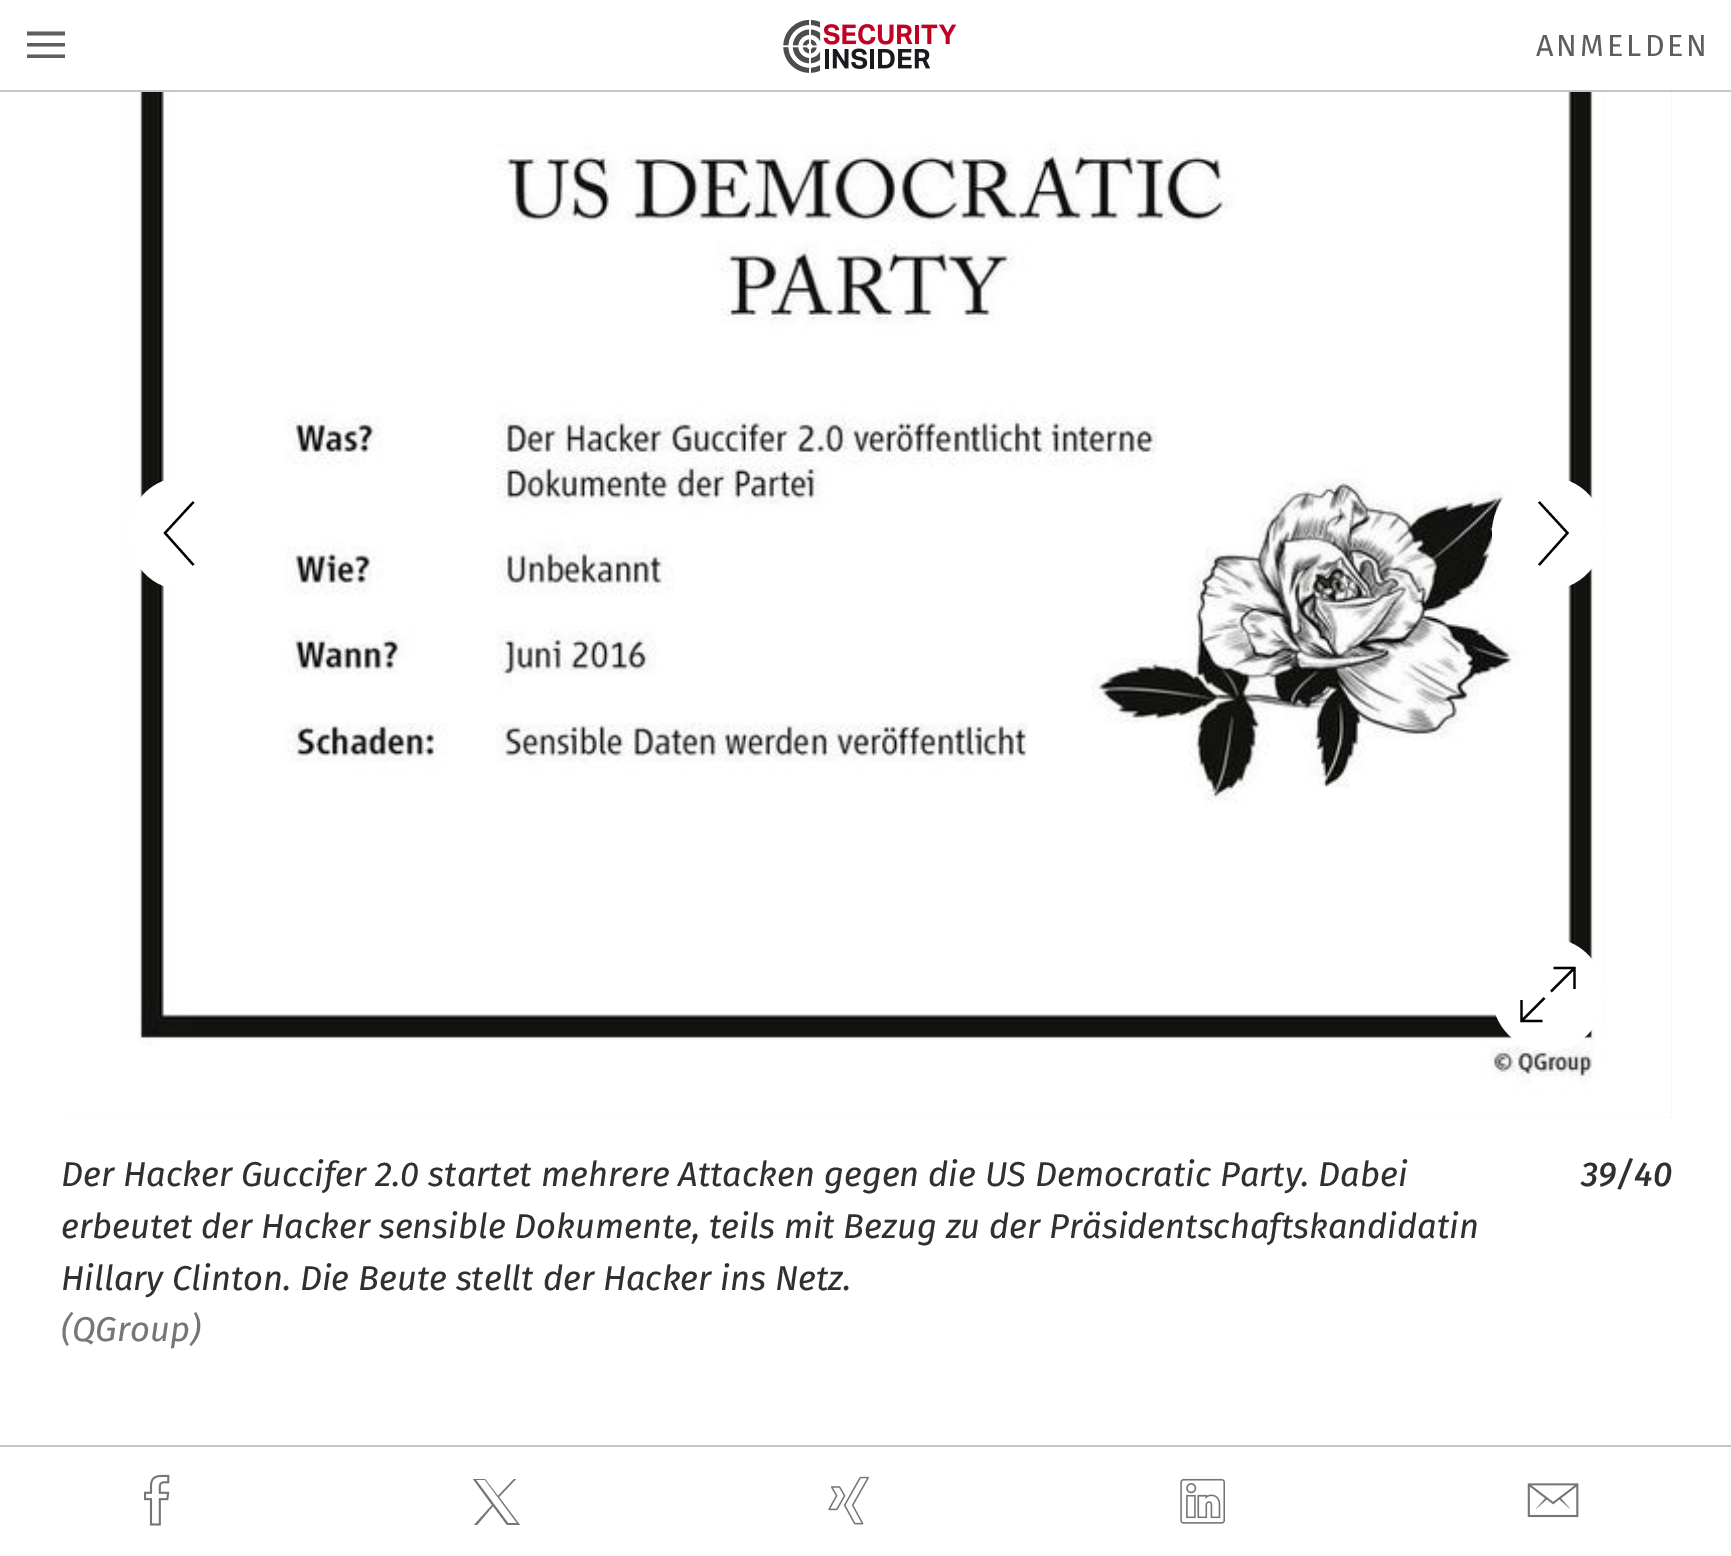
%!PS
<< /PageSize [1731 1556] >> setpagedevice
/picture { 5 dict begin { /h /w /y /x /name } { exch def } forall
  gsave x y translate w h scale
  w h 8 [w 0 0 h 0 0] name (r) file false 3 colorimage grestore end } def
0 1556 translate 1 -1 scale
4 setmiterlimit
1 setgray
0 0 1731 1556 rectfill
0.776 setgray
0 90 1731 2 rectfill
0.369 setgray
newpath 27 46.5 moveto 27 43 lineto 65 43 lineto 65 46.5 lineto closepath 27 35.5 moveto 27 31.5 lineto 65 31.5 lineto 65 35.5 lineto closepath 27 58 moveto 27 54.5 lineto 65 54.5 lineto 65 58 lineto closepath fill
(img1.rgb) 783 19 173 54 picture
/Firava-Regular [30.5 0 0 -30.5 0 0] selectfont
1536 56 moveto 3 0 (ANMELDEN) ashow
0.937 setgray
61 92 1611 1026 rectfill
(img2.rgb) 61 92 1611 1026 picture
1 setgray
newpath 184 590 moveto 216 590 241 564 241 533 curveto 241 502 216 477 184 477 curveto 153 477 128 502 128 533 curveto 128 564 153 590 184 590 curveto fill
0 setgray
2.2 setlinewidth
newpath 193.5 502 moveto 165 533 lineto 193.5 565 lineto stroke
1 setgray
newpath 1548 477 moveto 1517 477 1492 502 1492 533 curveto 1492 564 1517 590 1548 590 curveto 1579 590 1604 564 1604 533 curveto 1604 502 1579 477 1548 477 curveto fill
0 setgray
newpath 1539 565 moveto 1567.5 533 lineto 1539 502 lineto stroke
1 setgray
newpath 1548 1051 moveto 1579 1051 1604 1026 1604 994 curveto 1604 963 1579 938 1548 938 curveto 1517 938 1492 963 1492 994 curveto 1492 1026 1517 1051 1548 1051 curveto fill
0 setgray
newpath 1574.5 989 moveto 1574.5 968 lineto 1553.5 968 lineto 1521.5 1000 moveto 1521.5 1021 lineto 1542.5 1021 lineto 1573.5 969 moveto 1551 991.5 lineto 1544.5 998 moveto 1522 1020.5 lineto stroke
/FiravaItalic-Italic [34.45 0 0 -34.45 0 0] selectfont
0.188 setgray
61 1186 moveto (Der Hacker Guccifer 2.0 startet mehrere Attacken gegen die US Democratic Party. Dabei) show
61 1238 moveto (erbeutet der Hacker sensible Dokumente, teils mit Bezug zu der Präsidentschaftskandidatin) show
61 1290 moveto (Hillary Clinton. Die Beute stellt der Hacker ins Netz.) show
0.463 setgray
61 1341 moveto (\(QGroup\)) show
/FiravaItalic-MediumItalic [34.45 0 0 -34.45 0 0] selectfont
0.188 setgray
1581 1186 moveto (39/40) show
0.776 setgray
0 1445 1731 2 rectfill
(img3.rgb) 144 1474 26 52 picture
0.463 setgray
newpath 474 1525 moveto 477 1525 lineto 493 1506 lineto 507 1525 lineto 520 1525 lineto 499 1497 lineto 516 1479 lineto 514 1479 lineto 498 1496 lineto 485 1479 lineto 473 1479 lineto 492 1505 lineto closepath 476 1480 moveto 485 1480 lineto 517 1523 lineto 508 1523 lineto closepath fill
(img4.rgb) 828 1476 41 49 picture
(img5.rgb) 1180 1478 45 46 picture
(img6.rgb) 1527 1483 52 35 picture
showpage
